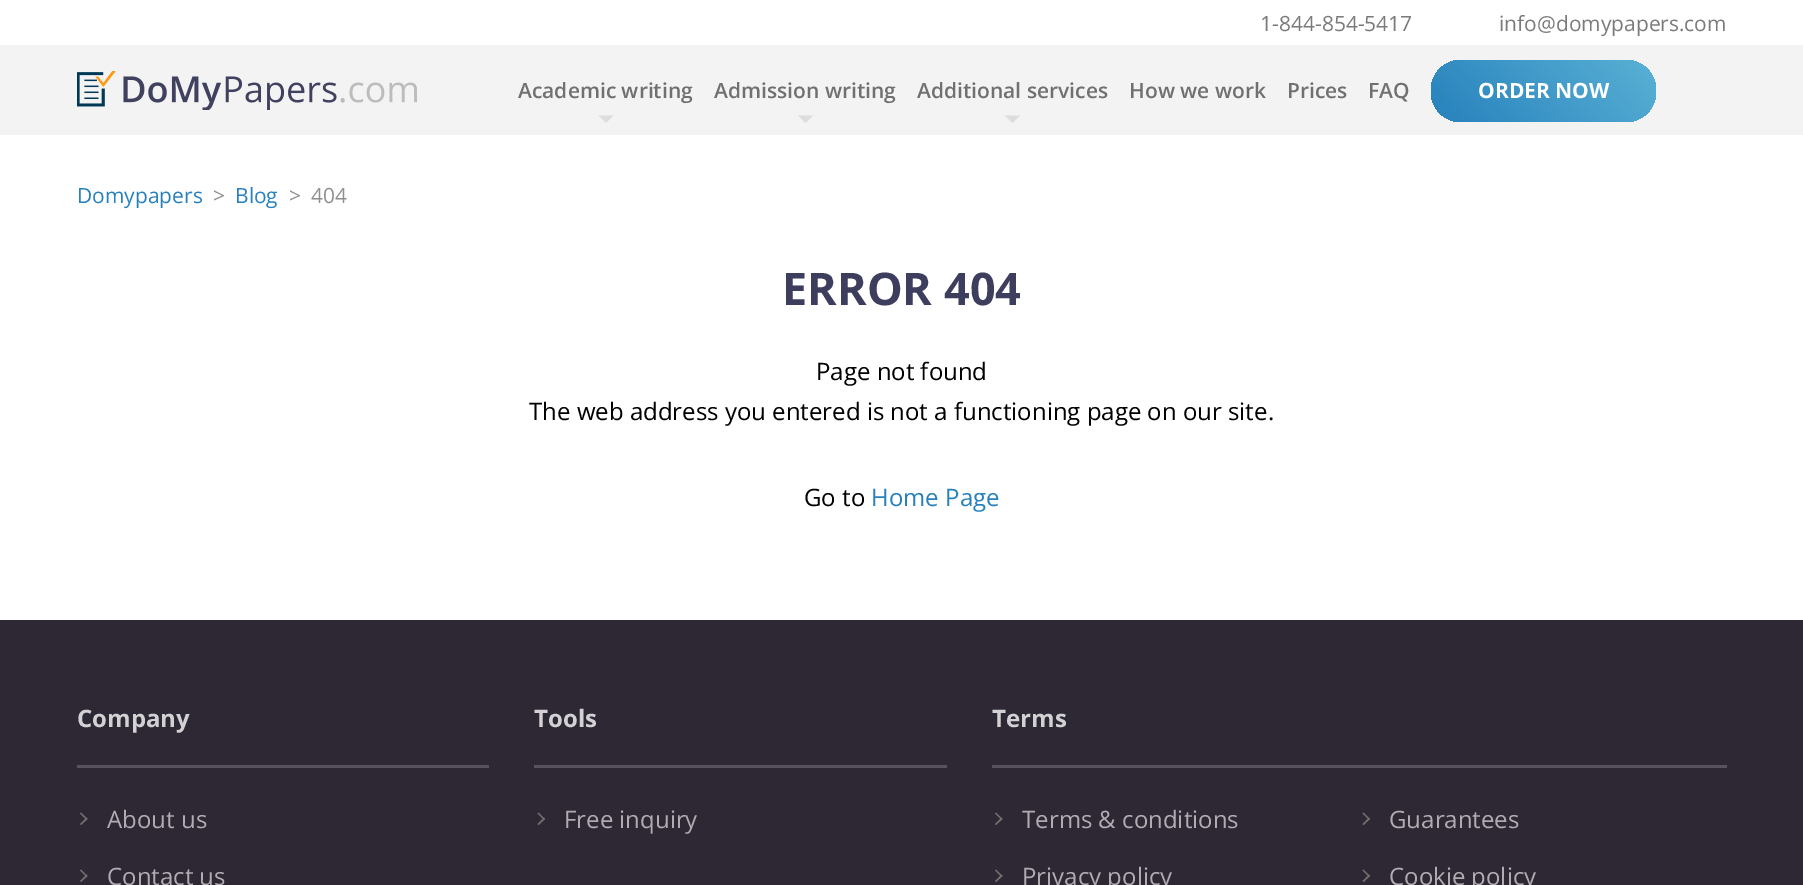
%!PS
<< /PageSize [1803 885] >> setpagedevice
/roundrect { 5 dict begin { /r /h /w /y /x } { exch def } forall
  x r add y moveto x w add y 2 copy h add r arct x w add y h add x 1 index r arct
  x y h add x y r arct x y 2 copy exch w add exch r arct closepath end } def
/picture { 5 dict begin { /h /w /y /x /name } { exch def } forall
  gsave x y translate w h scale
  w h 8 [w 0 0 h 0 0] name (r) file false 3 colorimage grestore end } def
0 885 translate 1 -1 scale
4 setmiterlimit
1 setgray
0 0 1803 885 rectfill
/OpenSans-Regular [21 0 0 -21 0 0] selectfont
0.482 setgray
1260 31 moveto (1-844-854-5417) show
1499 31 moveto (info@domypapers.com) show
0.953 setgray
0 45 1803 90 rectfill
(img1.rgb) 77 71 340 39 picture
/OpenSans-SemiBold [21 0 0 -21 0 0] selectfont
0.439 setgray
518 98 moveto (Academic writing) show
0.867 setgray
newpath 598.5 115.5 moveto 613.5 115.5 lineto 606 123 lineto closepath fill
0.439 setgray
714 98 moveto (Admission writing) show
0.867 setgray
newpath 798 115.5 moveto 813 115.5 lineto 805.5 123 lineto closepath fill
0.439 setgray
917 98 moveto (Additional services) show
0.867 setgray
newpath 1005 115.5 moveto 1020 115.5 lineto 1012.5 123 lineto closepath fill
0.439 setgray
1129 98 moveto (How we work) show
1287 98 moveto (Prices) show
1368 98 moveto (FAQ) show
gsave 1431 60 225 62 30 roundrect clip newpath
<< /ShadingType 2 /ColorSpace /DeviceRGB /Coords [1617 20 1470 162] /Extend [true true] /Function << /FunctionType 2 /Domain [0 1] /C0 [0.349 0.694 0.835] /C1 [0.153 0.506 0.737] /N 1 >> >> shfill grestore
/OpenSans-Bold [21 0 0 -21 0 0] selectfont
1 setgray
1478 98 moveto (ORDER NOW) show
/OpenSans-Regular [21 0 0 -21 0 0] selectfont
0.153 0.506 0.737 setrgbcolor
77 203 moveto (Domypapers) show
0.565 0.561 0.561 setrgbcolor
213 203 moveto (>) show
0.153 0.506 0.737 setrgbcolor
235 203 moveto (Blog) show
0.565 0.561 0.561 setrgbcolor
289 203 moveto (>) show
311 203 moveto (404) show
/OpenSans-Bold [45 0 0 -45 0 0] selectfont
0.239 0.239 0.365 setrgbcolor
782 305 moveto (ERROR 404) show
/OpenSans-Regular [24 0 0 -24 0 0] selectfont
0 setgray
816 380 moveto (Page not found) show
529 420 moveto (The web address you entered is not a functioning page on our site.) show
804 506 moveto (Go to) show
0.153 0.506 0.737 setrgbcolor
871 506 moveto (Home Page) show
0.18 0.153 0.204 setrgbcolor
0 620 1803 265 rectfill
0.345 0.322 0.365 setrgbcolor
77 765 412 3 rectfill
/OpenSans-Bold [24 0 0 -24 0 0] selectfont
0.824 0.82 0.827 setrgbcolor
77 727 moveto (Company) show
0.439 setgray
newpath 80 813.5 moveto 81 812.5 lineto 87.5 819 lineto 86.5 820 lineto closepath fill
newpath 80 824 moveto 86.5 817.5 lineto 87.5 819 lineto 81 825 lineto closepath fill
/OpenSans-Regular [24 0 0 -24 0 0] selectfont
0.686 0.675 0.698 setrgbcolor
107 828 moveto (About us) show
0.439 setgray
newpath 80 870.5 moveto 81 869.5 lineto 87.5 876 lineto 86.5 877 lineto closepath fill
newpath 80 881 moveto 86.5 874.5 lineto 87.5 876 lineto 81 882 lineto closepath fill
0.686 0.675 0.698 setrgbcolor
107 885 moveto (Contact us) show
0.345 0.322 0.365 setrgbcolor
534 765 413 3 rectfill
/OpenSans-Bold [24 0 0 -24 0 0] selectfont
0.824 0.82 0.827 setrgbcolor
534 727 moveto (Tools) show
0.439 setgray
newpath 537.5 813.5 moveto 538.5 812.5 lineto 545 819 lineto 544 820 lineto closepath fill
newpath 537.5 824 moveto 544 817.5 lineto 545 819 lineto 538.5 825 lineto closepath fill
/OpenSans-Regular [24 0 0 -24 0 0] selectfont
0.686 0.675 0.698 setrgbcolor
564 828 moveto (Free inquiry) show
0.345 0.322 0.365 setrgbcolor
992 765 735 3 rectfill
/OpenSans-Bold [24 0 0 -24 0 0] selectfont
0.824 0.82 0.827 setrgbcolor
992 727 moveto (Terms) show
0.439 setgray
newpath 995 813.5 moveto 996 812.5 lineto 1002.5 819 lineto 1001.5 820 lineto closepath fill
newpath 995 824 moveto 1001.5 817.5 lineto 1002.5 819 lineto 996 825 lineto closepath fill
/OpenSans-Regular [24 0 0 -24 0 0] selectfont
0.686 0.675 0.698 setrgbcolor
1022 828 moveto (Terms & conditions) show
0.439 setgray
newpath 1362.5 813.5 moveto 1363.5 812.5 lineto 1370 819 lineto 1369 820 lineto closepath fill
newpath 1362.5 824 moveto 1369 817.5 lineto 1370 819 lineto 1363.5 825 lineto closepath fill
0.686 0.675 0.698 setrgbcolor
1389 828 moveto (Guarantees) show
0.439 setgray
newpath 995 870.5 moveto 996 869.5 lineto 1002.5 876 lineto 1001.5 877 lineto closepath fill
newpath 995 881 moveto 1001.5 874.5 lineto 1002.5 876 lineto 996 882 lineto closepath fill
0.686 0.675 0.698 setrgbcolor
1022 885 moveto (Privacy policy) show
0.439 setgray
newpath 1362.5 870.5 moveto 1363.5 869.5 lineto 1370 876 lineto 1369 877 lineto closepath fill
newpath 1362.5 881 moveto 1369 874.5 lineto 1370 876 lineto 1363.5 882 lineto closepath fill
0.686 0.675 0.698 setrgbcolor
1389 885 moveto (Cookie policy) show
showpage
